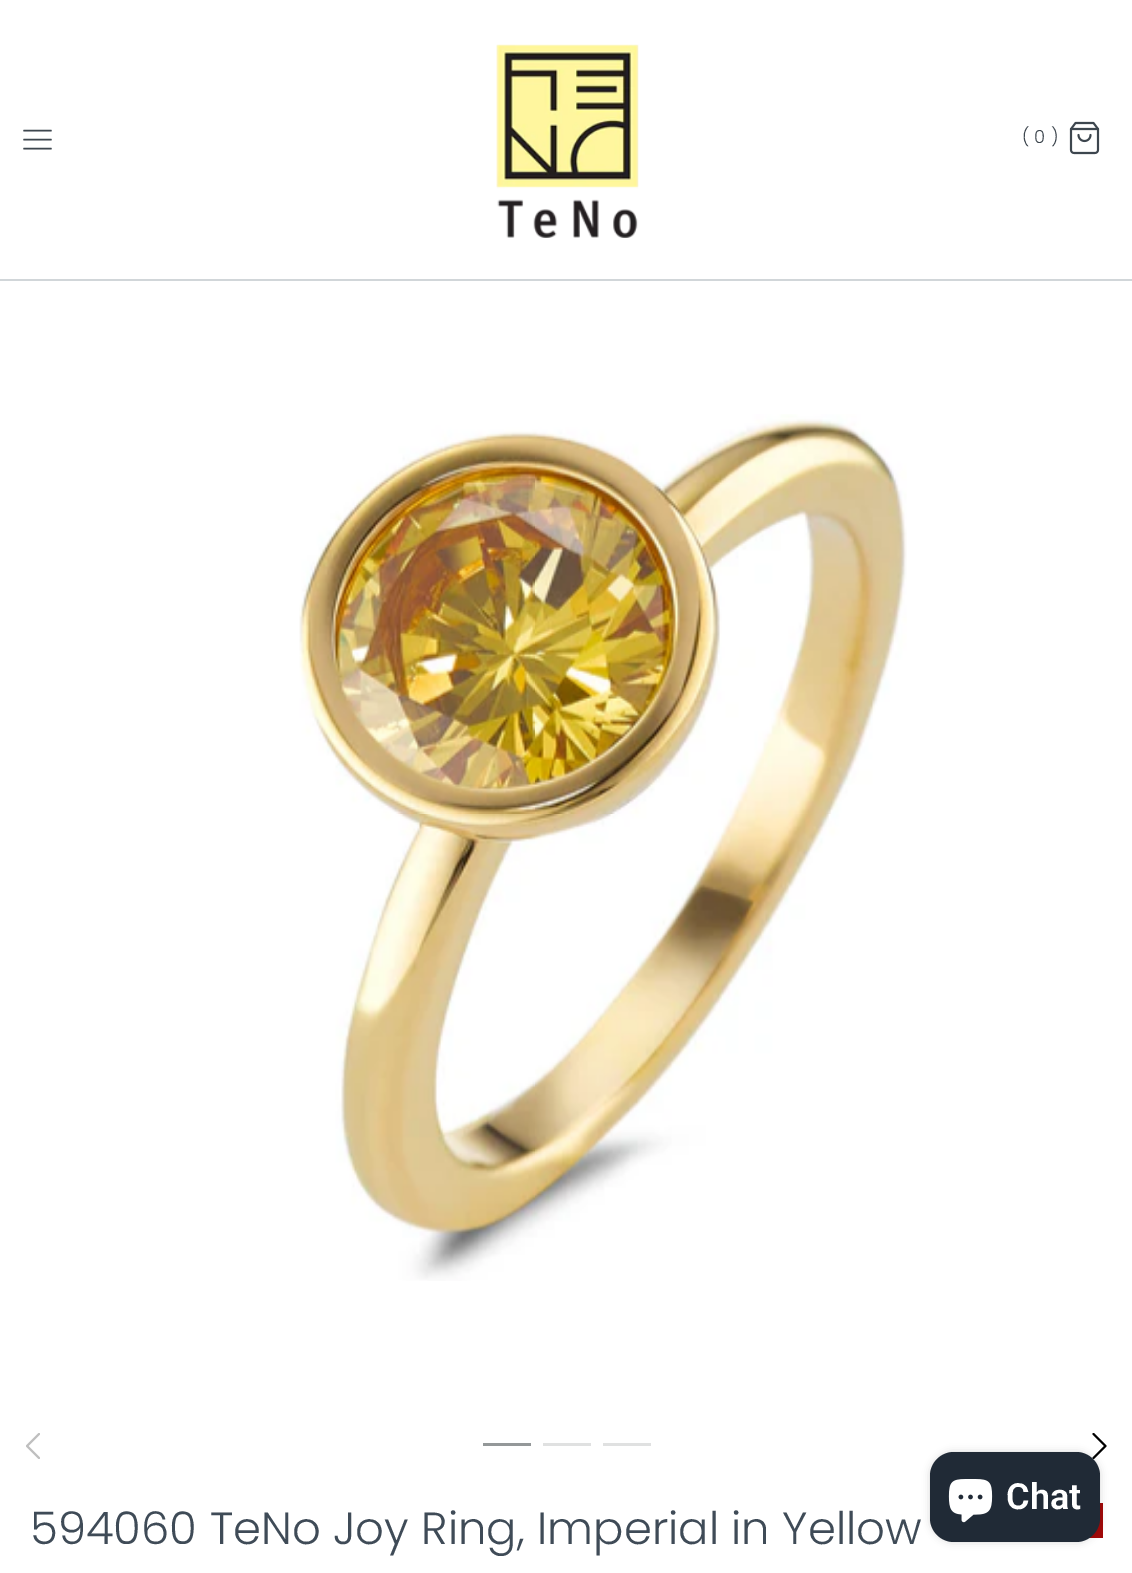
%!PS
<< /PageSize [1132 1573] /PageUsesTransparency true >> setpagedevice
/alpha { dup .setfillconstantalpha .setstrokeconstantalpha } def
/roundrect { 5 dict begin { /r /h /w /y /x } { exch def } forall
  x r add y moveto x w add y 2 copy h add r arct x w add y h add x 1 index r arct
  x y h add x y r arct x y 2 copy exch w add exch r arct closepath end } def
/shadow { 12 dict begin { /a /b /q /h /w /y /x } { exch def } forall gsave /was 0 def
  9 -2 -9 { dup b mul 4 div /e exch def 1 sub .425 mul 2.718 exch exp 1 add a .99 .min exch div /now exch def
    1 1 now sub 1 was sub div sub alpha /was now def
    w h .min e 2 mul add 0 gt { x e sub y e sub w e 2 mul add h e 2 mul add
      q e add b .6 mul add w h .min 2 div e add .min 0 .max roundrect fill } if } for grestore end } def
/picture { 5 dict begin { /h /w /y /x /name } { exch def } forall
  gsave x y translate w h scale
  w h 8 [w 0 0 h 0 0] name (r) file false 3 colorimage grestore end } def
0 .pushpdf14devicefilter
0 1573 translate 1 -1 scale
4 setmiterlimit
1 setgray
0 0 1132 1573 rectfill
0.82 0.839 0.851 setrgbcolor
0 279 1132 2 rectfill
0.239 0.275 0.306 setrgbcolor
1.5 setlinewidth
1 setlinecap
1 setlinejoin
newpath 24 139.5 moveto 51 139.5 lineto 24 130.5 moveto 51 130.5 lineto 24 148.5 moveto 51 148.5 lineto stroke
(img1.rgb) 496 44 143 194 picture
/Poppins-Light [18 0 0 -18 0 0] selectfont
1022 143 moveto (\( 0 \)) show
(img2.rgb) 1069 121 31 34 picture
0 setgray
2 setlinewidth
newpath 1093.5 1458 moveto 1105.5 1446 lineto 1093.5 1434 lineto stroke
0.635 0.035 0.035 setrgbcolor
1089 1503 14 35 rectfill
0 setgray
930 1452 170 90 24 4 0.15 shadow
0.125 0.165 0.212 setrgbcolor
930 1452 170 90 24 roundrect fill
(img3.rgb) 948 1479 45 44 picture
/Roboto-SemiBold [36 0 0 -36 0 0] selectfont
1 setgray
1006 1509 moveto (Chat) show
(img4.rgb) 299 414 608 867 picture
0.749 setgray
newpath 39 1458 moveto 27 1446 lineto 39 1434 lineto stroke
0.58 0.596 0.6 setrgbcolor
483 1443 48 3 rectfill
0.878 0.882 0.882 setrgbcolor
543 1443 48 3 rectfill
603 1443 48 3 rectfill
/Poppins-Light [45 0 0 -45 0 0] selectfont
0.247 0.294 0.341 setrgbcolor
30 1544 moveto (594060 TeNo Joy Ring, Imperial in Yellow) show
.poppdf14devicefilter showpage
